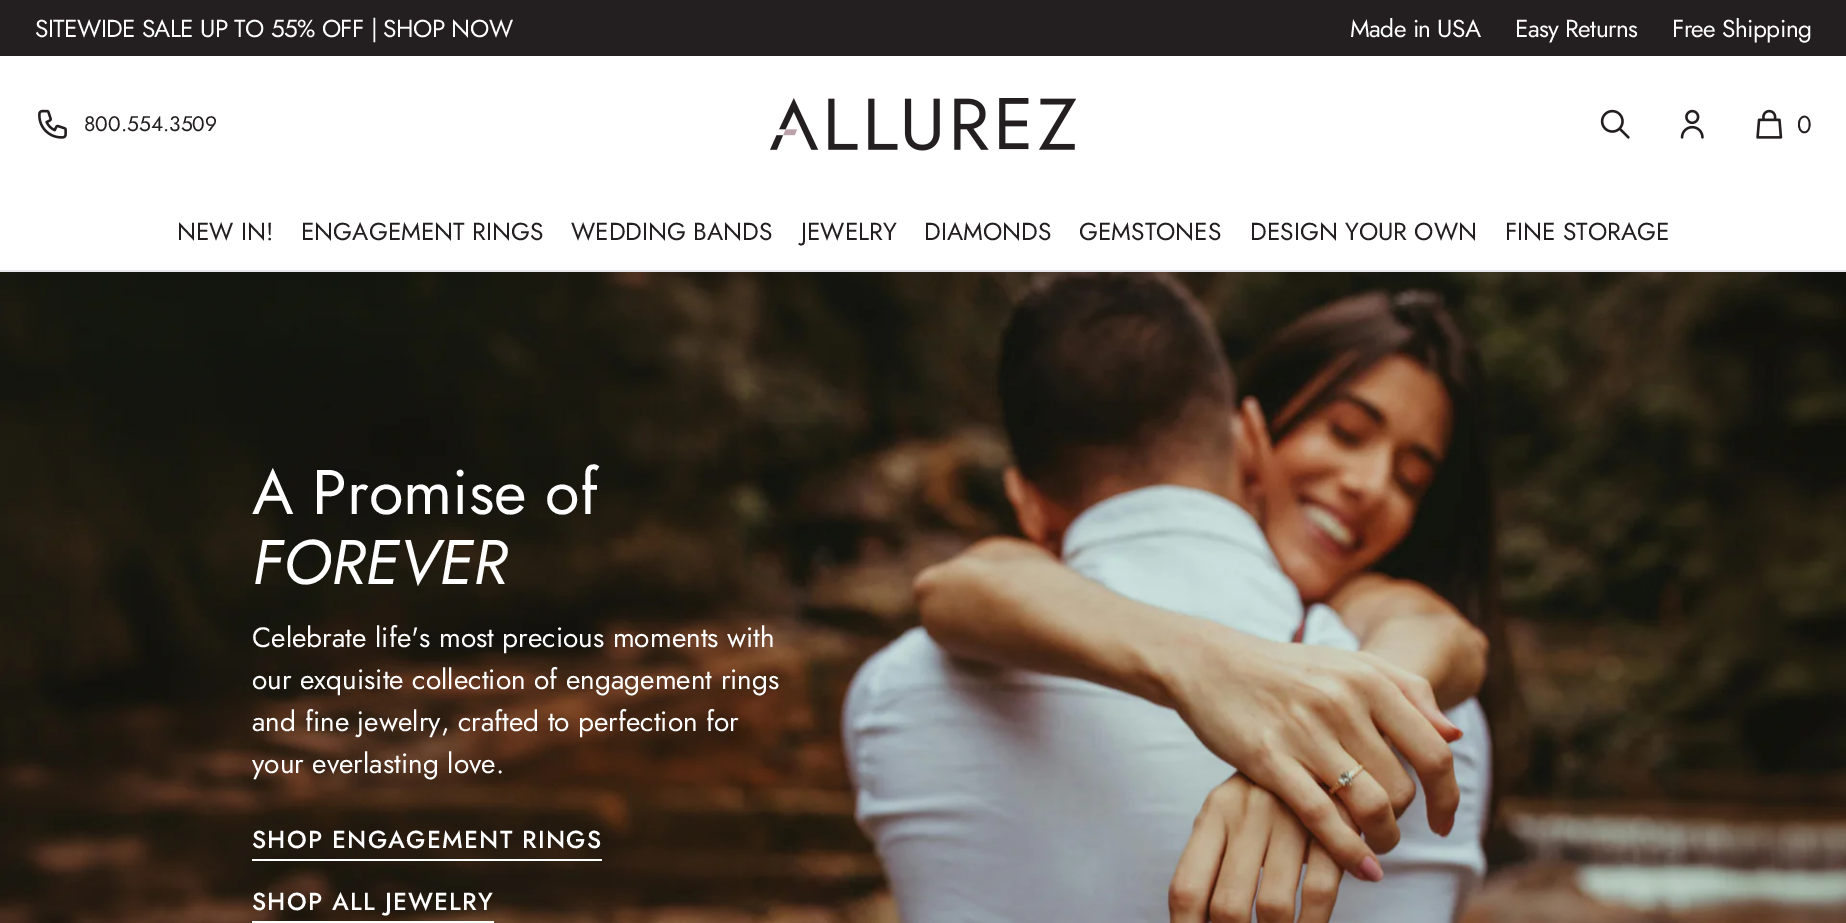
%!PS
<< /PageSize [1846 923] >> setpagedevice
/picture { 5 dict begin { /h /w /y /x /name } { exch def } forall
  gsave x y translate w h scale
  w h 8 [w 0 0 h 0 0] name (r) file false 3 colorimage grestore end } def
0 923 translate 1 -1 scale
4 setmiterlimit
1 setgray
0 0 1846 923 rectfill
0.137 0.122 0.125 setrgbcolor
0 0 1846 56 rectfill
/Jost-Regular [24.5 0 0 -24.5 0 0] selectfont
1 setgray
35 37 moveto -0.6 0 (SITEWIDE SALE UP TO 55% OFF | SHOP NOW) ashow
1350 37 moveto -0.6 0 (Made in USA) ashow
1515 37 moveto -0.6 0 (Easy Returns) ashow
1672 37 moveto -0.6 0 (Free Shipping) ashow
(img1.rgb) 38 109 29 30 picture
/Jost-Regular [21 0 0 -21 0 0] selectfont
0.137 0.122 0.125 setrgbcolor
84 131 moveto (800.554.3509) show
(img2.rgb) 770 98 306 53 picture
(img3.rgb) 1600 109 30 30 picture
(img4.rgb) 1680 109 24 30 picture
(img5.rgb) 1756 109 27 30 picture
/Jost-Regular [24.5 0 0 -24.5 0 0] selectfont
1797 133 moveto (0) show
0.898 0.906 0.922 setrgbcolor
0 270 1846 2 rectfill
0.137 0.122 0.125 setrgbcolor
177 240 moveto (NEW IN!) show
301 240 moveto (ENGAGEMENT RINGS) show
571 240 moveto (WEDDING BANDS) show
801 240 moveto (JEWELRY) show
924 240 moveto (DIAMONDS) show
1079 240 moveto (GEMSTONES) show
1250 240 moveto (DESIGN YOUR OWN) show
1505 240 moveto (FINE STORAGE) show
(img6.rgb) 0 272 1846 651 picture
/Jost-Regular [63 0 0 -63 0 0] selectfont
1 setgray
252 514 moveto (A Promise of) show
/Jost-Italic [63 0 0 -63 0 0] selectfont
252 584 moveto (FOREVER) show
/Jost-Regular [28 0 0 -28 0 0] selectfont
252 647 moveto (Celebrate life's most precious moments with) show
252 689 moveto (our exquisite collection of engagement rings) show
252 731 moveto (and fine jewelry, crafted to perfection for) show
252 773 moveto (your everlasting love.) show
252 859 350 2 rectfill
/Jost-Medium [24.5 0 0 -24.5 0 0] selectfont
252 848 moveto 1.25 0 (SHOP ENGAGEMENT RINGS) ashow
252 921 242 2 rectfill
252 910 moveto 1.25 0 (SHOP ALL JEWELRY) ashow
showpage
